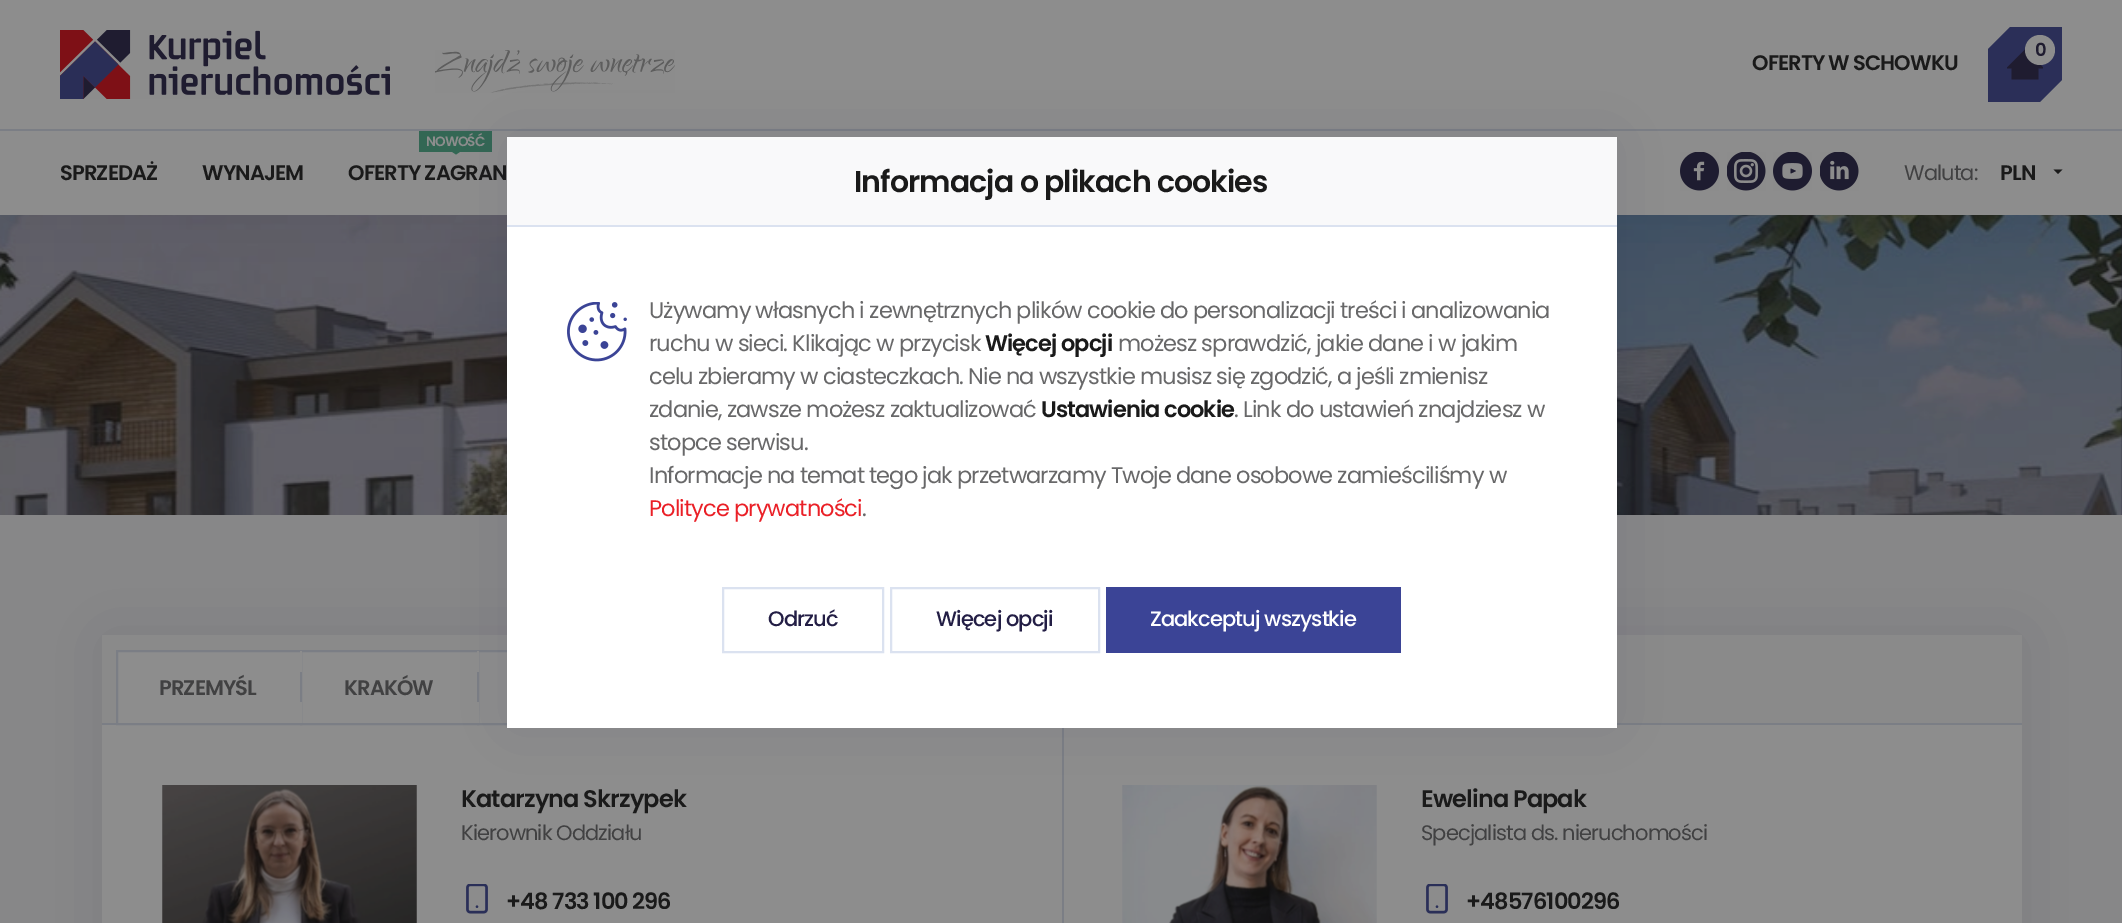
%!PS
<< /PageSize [2122 923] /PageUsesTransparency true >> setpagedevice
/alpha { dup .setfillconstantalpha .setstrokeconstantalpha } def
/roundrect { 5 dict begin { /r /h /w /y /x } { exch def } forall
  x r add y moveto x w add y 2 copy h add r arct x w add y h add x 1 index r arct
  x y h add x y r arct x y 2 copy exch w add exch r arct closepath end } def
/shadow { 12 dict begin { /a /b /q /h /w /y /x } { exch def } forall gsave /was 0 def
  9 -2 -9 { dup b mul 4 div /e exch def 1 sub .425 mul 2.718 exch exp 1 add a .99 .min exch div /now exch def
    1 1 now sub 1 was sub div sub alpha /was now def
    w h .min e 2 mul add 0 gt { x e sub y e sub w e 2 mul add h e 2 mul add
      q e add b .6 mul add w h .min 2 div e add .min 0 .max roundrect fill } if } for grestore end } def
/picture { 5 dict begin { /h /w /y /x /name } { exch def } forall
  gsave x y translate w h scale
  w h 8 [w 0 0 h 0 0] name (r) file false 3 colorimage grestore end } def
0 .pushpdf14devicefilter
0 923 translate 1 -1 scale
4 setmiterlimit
1 setgray
0 0 2122 923 rectfill
(img8.rgb) 0 215 2122 300 picture
0.122 0.11 0.188 setrgbcolor
0 131 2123 84 0 37.5 0.1 shadow
0.553 setgray
0 0 2122 129 rectfill
0.482 0.494 0.522 setrgbcolor
0 129 2122 2 rectfill
(img1.rgb) 60 30 330 69 picture
(img2.rgb) 435 50 240 43 picture
0.169 0.184 0.345 setrgbcolor
newpath 2010 27 moveto 1988 49 lineto 1988 102 lineto 2040 102 lineto 2062 80 lineto 2062 27 lineto closepath fill
0.122 0.11 0.188 setrgbcolor
newpath 2036.5 60.5 moveto 2036.5 50.5 lineto 2032 50.5 lineto 2032 56 lineto 2025 49.5 lineto 2007 67.5 lineto 2007 68.5 lineto 2011.5 68.5 lineto 2011.5 79.5 lineto 2038.5 79.5 lineto 2038.5 68.5 lineto 2043 68.5 lineto 2043 67.5 lineto closepath fill
0.553 setgray
newpath 2040 50 15 0 360 arc closepath fill
/Poppins-SemiBold [18 0 0 -18 0 0] selectfont
0.122 0.11 0.188 setrgbcolor
2035 56 moveto -0.9 0 (0) ashow
/Poppins-SemiBold [21 0 0 -21 0 0] selectfont
0.102 setgray
1752 70 moveto -0.9 0 (OFERTY W SCHOWKU) ashow
0.553 setgray
0 131 2122 84 rectfill
0.102 setgray
60 180 moveto -0.9 0 (SPRZEDAŻ) ashow
202 180 moveto -0.9 0 (WYNAJEM) ashow
0.2 0.404 0.329 setrgbcolor
419 131 73 21 rectfill
/Poppins-SemiBold [13.5 0 0 -13.5 0 0] selectfont
0.553 setgray
426 146 moveto -0.9 0 (NOWOŚĆ) ashow
0.2 0.404 0.329 setrgbcolor
newpath 451.5 151.5 moveto 460.5 151.5 lineto 456 154.5 lineto closepath fill
/Poppins-SemiBold [21 0 0 -21 0 0] selectfont
0.102 setgray
348 180 moveto -0.9 0 (OFERTY ZAGRAN) ashow
(img3.rgb) 1680 152 39 39 picture
(img4.rgb) 1727 152 39 39 picture
(img5.rgb) 1773 152 39 39 picture
(img6.rgb) 1820 152 39 39 picture
/Poppins-Regular [21 0 0 -21 0 0] selectfont
0.255 0.255 0.259 setrgbcolor
1904 180 moveto -0.9 0 (Waluta:) ashow
/Poppins-SemiBold [21 0 0 -21 0 0] selectfont
0.102 setgray
2000 180 moveto -0.9 0 (PLN) ashow
newpath 2053.5 169.5 moveto 2062.5 169.5 lineto 2058 174 lineto closepath fill
0.529 0.529 0.533 setrgbcolor
0 515 2122 408 rectfill
0.122 0.11 0.188 setrgbcolor
102 635 1920 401 0 37.5 0.1 shadow
0.553 setgray
102 725 1920 198 rectfill
0.541 setgray
102 635 1920 88 rectfill
0.482 0.494 0.522 setrgbcolor
102 723 1920 2 rectfill
0.553 setgray
newpath 117 651 moveto 301 651 lineto 301 724 lineto 117 724 lineto closepath gsave fill grestore
0.482 0.494 0.522 setrgbcolor
2 setlinewidth
stroke
0.553 setgray
newpath 301 651 moveto 478 651 lineto 478 724 lineto 301 724 lineto closepath gsave fill grestore
0.482 0.494 0.522 setrgbcolor
stroke
0.553 setgray
479 652 28 71 rectfill
0.482 0.494 0.522 setrgbcolor
478 651 180 73 rectstroke
0.553 setgray
477 651 2 21 rectfill
477 702 2 21 rectfill
0.482 0.494 0.522 setrgbcolor
newpath 104 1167 moveto 104 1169 lineto 1064 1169 lineto 1064 726 lineto 1062 726 lineto 1062 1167 lineto closepath fill
(img9.rgb) 162 785 255 138 picture
(img11.rgb) 1122 785 255 138 picture
0.137 0.118 0.271 setrgbcolor
507 137 1110 591 0 37.5 0.1 shadow
1 setgray
507 227 1110 501 rectfill
0.976 0.976 0.98 setrgbcolor
507 137 1110 88 rectfill
0.859 0.886 0.941 setrgbcolor
507 225 1110 2 rectfill
/Poppins-SemiBold [30 0 0 -30 0 0] selectfont
0.102 setgray
854 192 moveto -0.9 0 (Informacja o plikach cookies) ashow
(img7.rgb) 567 302 60 60 picture
/Poppins-Regular [22.5 0 0 -22.5 0 0] selectfont
0.408 0.408 0.412 setrgbcolor
649 318 moveto -0.9 0 (Używamy własnych i zewnętrznych plików cookie do personalizacji treści i analizowania) ashow
649 351 moveto -0.9 0 (ruchu w sieci. Klikając w przycisk) ashow
/Poppins-SemiBold [22.5 0 0 -22.5 0 0] selectfont
0.102 setgray
985 351 moveto -0.9 0 (Więcej opcji) ashow
/Poppins-Regular [22.5 0 0 -22.5 0 0] selectfont
0.408 0.408 0.412 setrgbcolor
1118 351 moveto -0.9 0 (możesz sprawdzić, jakie dane i w jakim) ashow
649 384 moveto -0.9 0 (celu zbieramy w ciasteczkach. Nie na wszystkie musisz się zgodzić, a jeśli zmienisz) ashow
649 417 moveto -0.9 0 (zdanie, zawsze możesz zaktualizować) ashow
/Poppins-SemiBold [22.5 0 0 -22.5 0 0] selectfont
0.102 setgray
1041 417 moveto -0.9 0 (Ustawienia cookie) ashow
/Poppins-Regular [22.5 0 0 -22.5 0 0] selectfont
0.408 0.408 0.412 setrgbcolor
1234 417 moveto -0.9 0 (. Link do ustawień znajdziesz w) ashow
649 450 moveto -0.9 0 (stopce serwisu.) ashow
649 483 moveto -0.9 0 (Informacje na temat tego jak przetwarzamy Twoje dane osobowe zamieściliśmy w) ashow
0.918 0.125 0.153 setrgbcolor
649 516 moveto -0.9 0 (Polityce prywatności) ashow
0.408 0.408 0.412 setrgbcolor
862 516 moveto -0.9 0 (.) ashow
0.859 0.886 0.941 setrgbcolor
723 588 160 64 rectstroke
/Poppins-Medium [21 0 0 -21 0 0] selectfont
0.137 0.118 0.271 setrgbcolor
768 626 moveto -0.9 0 (Odrzuć) ashow
0.859 0.886 0.941 setrgbcolor
891 588 208 64 rectstroke
0.137 0.118 0.271 setrgbcolor
936 626 moveto -0.9 0 (Więcej opcji) ashow
0.231 0.267 0.588 setrgbcolor
1106 587 295 66 rectfill
1 setgray
1150 626 moveto -0.9 0 (Zaakceptuj wszystkie) ashow
/Poppins-SemiBold [21 0 0 -21 0 0] selectfont
0.255 0.255 0.259 setrgbcolor
159 695 moveto -0.9 0 (PRZEMYŚL) ashow
0.553 setgray
300 651 2 21 rectfill
0.255 0.255 0.259 setrgbcolor
344 695 moveto -0.9 0 (KRAKÓW) ashow
0.553 setgray
300 702 2 21 rectfill
/Poppins-SemiBold [24 0 0 -24 0 0] selectfont
0.102 setgray
461 807 moveto -0.9 0 (Katarzyna Skrzypek) ashow
/Poppins-Regular [21 0 0 -21 0 0] selectfont
0.255 0.255 0.259 setrgbcolor
461 840 moveto -0.9 0 (Kierownik Oddziału) ashow
(img10.rgb) 466 884 22 30 picture
/Poppins-SemiBold [22.5 0 0 -22.5 0 0] selectfont
0.102 setgray
506 909 moveto -0.9 0 (+48 733 100 296) ashow
/Poppins-SemiBold [24 0 0 -24 0 0] selectfont
1421 807 moveto -0.9 0 (Ewelina Papak) ashow
/Poppins-Regular [21 0 0 -21 0 0] selectfont
0.255 0.255 0.259 setrgbcolor
1421 840 moveto -0.9 0 (Specjalista ds. nieruchomości) ashow
(img10.rgb) 1426 884 22 30 picture
/Poppins-SemiBold [22.5 0 0 -22.5 0 0] selectfont
0.102 setgray
1466 909 moveto -0.9 0 (+48576100296) ashow
.poppdf14devicefilter showpage
